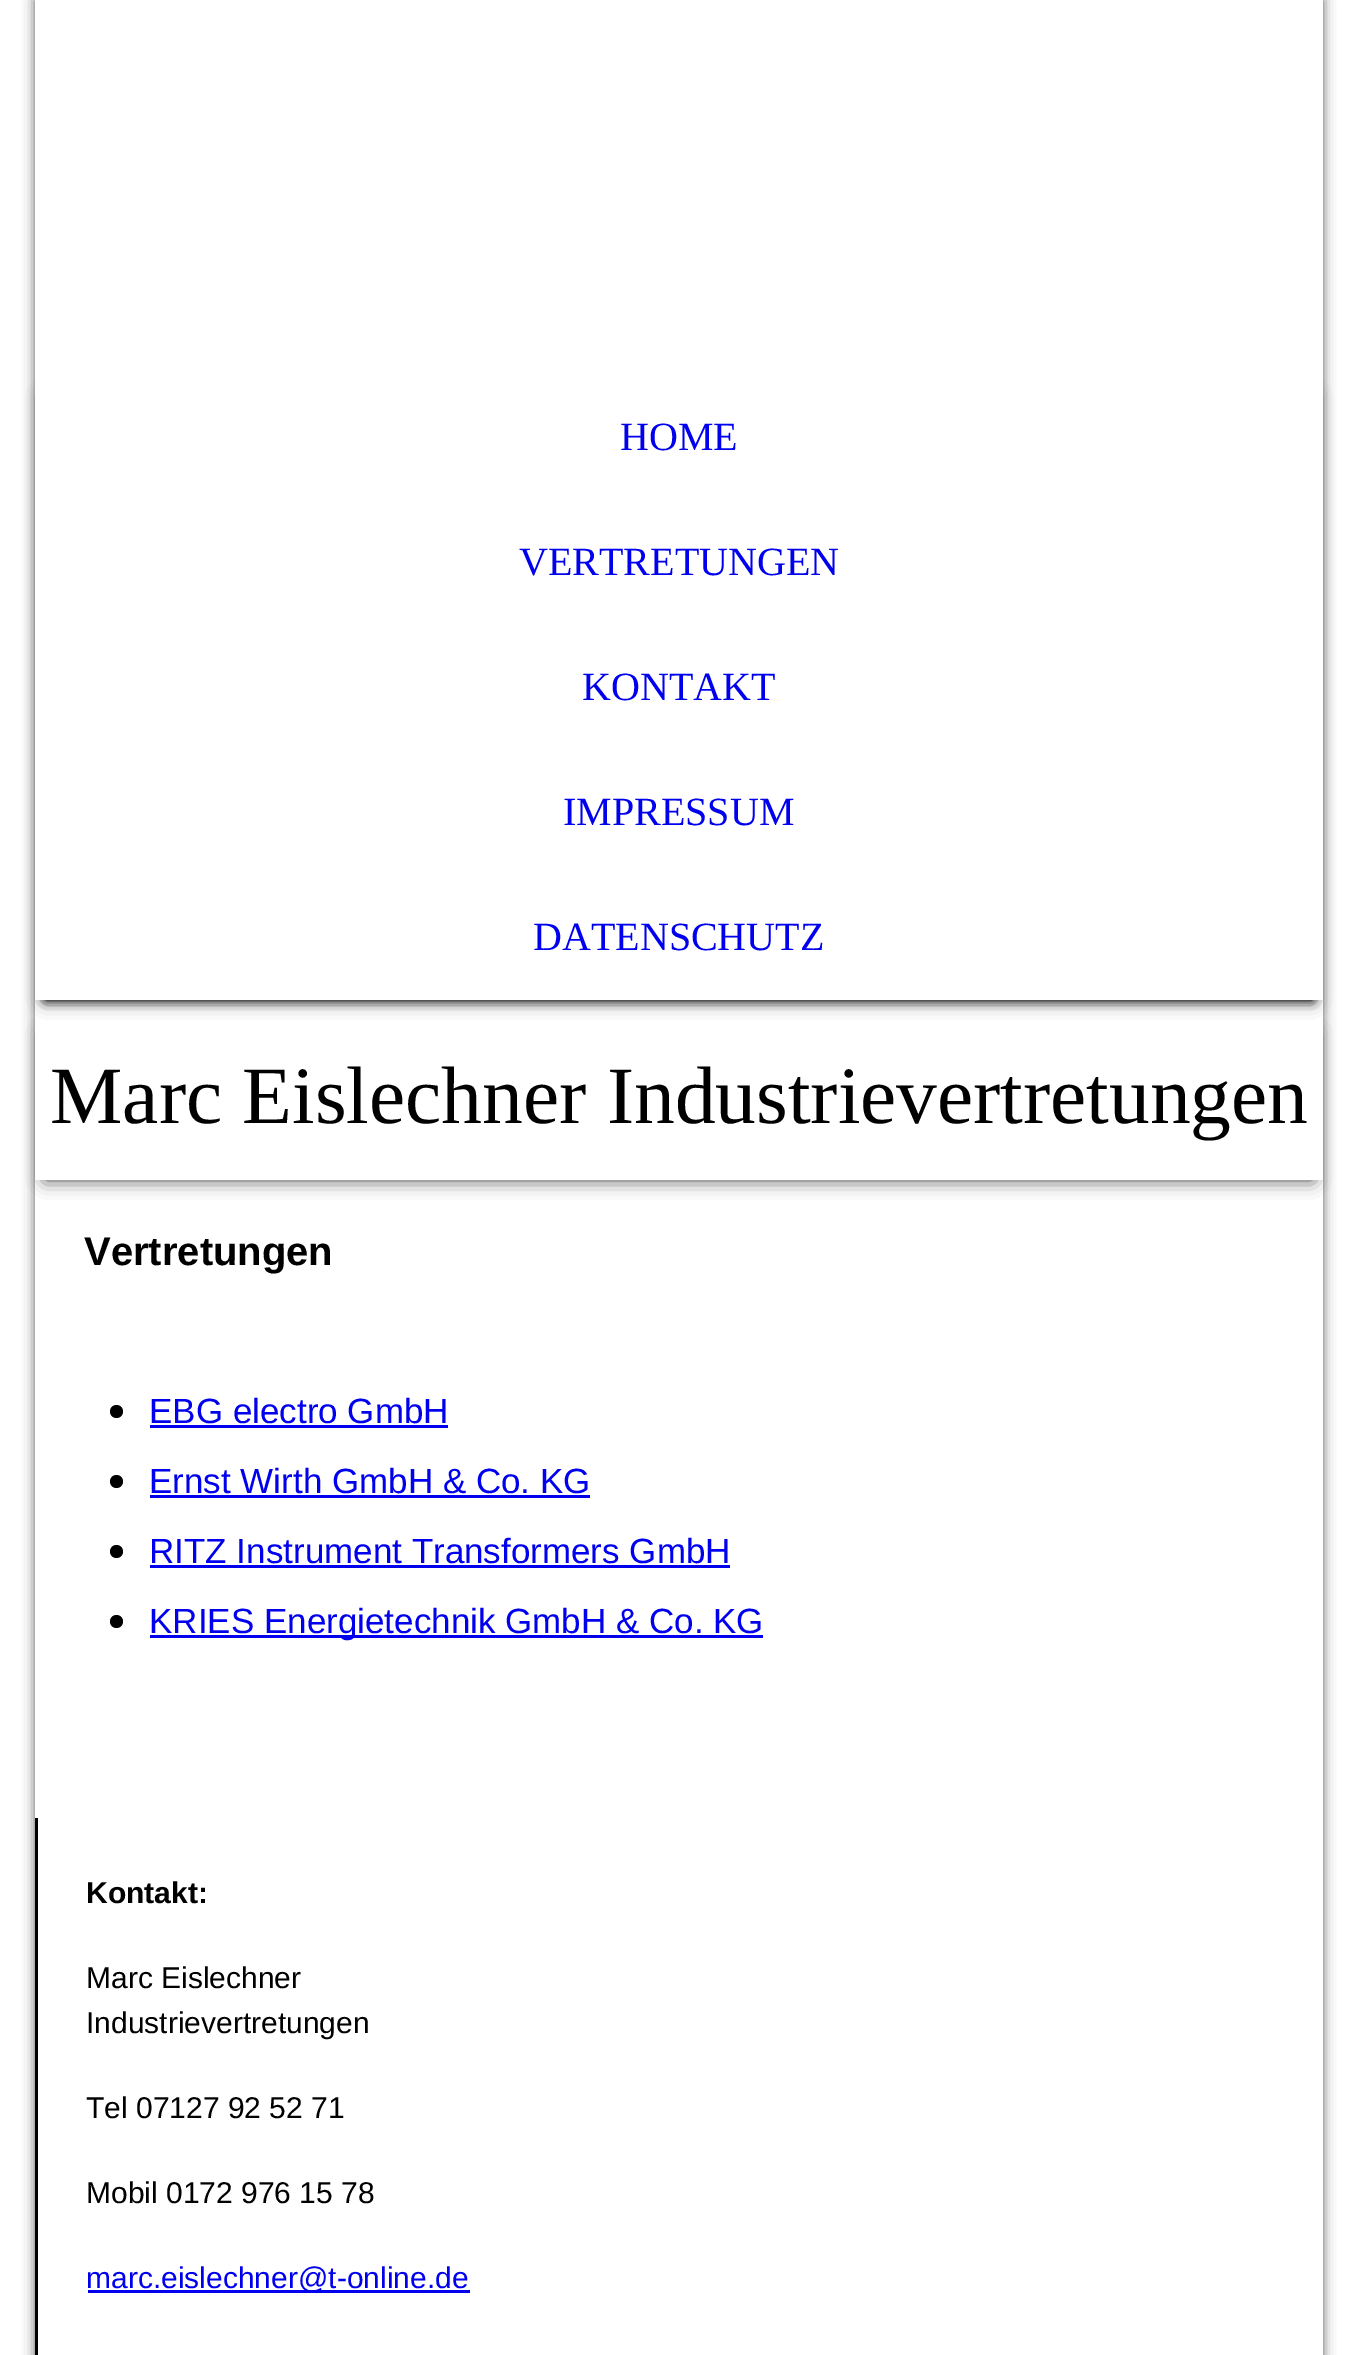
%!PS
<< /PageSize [1356 2355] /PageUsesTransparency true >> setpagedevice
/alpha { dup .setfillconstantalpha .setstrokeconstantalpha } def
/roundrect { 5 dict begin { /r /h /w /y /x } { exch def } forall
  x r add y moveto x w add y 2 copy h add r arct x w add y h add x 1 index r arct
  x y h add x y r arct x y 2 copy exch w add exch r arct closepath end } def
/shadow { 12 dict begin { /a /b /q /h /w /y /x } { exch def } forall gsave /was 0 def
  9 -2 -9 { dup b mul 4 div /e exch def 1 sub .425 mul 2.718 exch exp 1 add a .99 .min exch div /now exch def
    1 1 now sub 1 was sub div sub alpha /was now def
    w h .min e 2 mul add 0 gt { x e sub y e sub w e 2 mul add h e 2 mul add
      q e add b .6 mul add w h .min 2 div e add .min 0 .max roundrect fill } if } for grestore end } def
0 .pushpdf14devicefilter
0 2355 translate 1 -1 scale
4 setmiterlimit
1 setgray
0 0 1356 2355 rectfill
gsave
newpath 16 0 moveto 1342 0 lineto 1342 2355 lineto 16 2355 lineto closepath 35 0 moveto 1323 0 lineto 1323 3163 lineto 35 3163 lineto closepath eoclip newpath
0.078 setgray
35 0 1288 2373 0 6 0.7 shadow
grestore
gsave
newpath 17 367 moveto 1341 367 lineto 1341 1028 lineto 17 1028 lineto closepath 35 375 moveto 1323 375 lineto 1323 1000 lineto 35 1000 lineto closepath eoclip newpath
0.267 setgray
45 395 1268 605 0 9 1 shadow
grestore
/LiberationSerif-Regular [40 0 0 -40 0 0] selectfont
0 0 0.933 setrgbcolor
620 450 moveto (HOME) show
519 575 moveto (VERTRETUNGEN) show
582 700 moveto (KONTAKT) show
563 825 moveto (IMPRESSUM) show
gsave
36 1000 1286 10 rectclip
0 setgray
45 895 1268 105 0 5 1 shadow
grestore
533 950 moveto (DATENSCHUTZ) show
gsave
newpath 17 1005 moveto 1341 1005 lineto 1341 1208 lineto 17 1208 lineto closepath 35 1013 moveto 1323 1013 lineto 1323 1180 lineto 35 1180 lineto closepath eoclip newpath
0.267 setgray
45 1033 1268 147 0 9 1 shadow
grestore
/LiberationSerif-Regular [81.5 0 0 -81.5 0 0] selectfont
0 setgray
50 1123 moveto (Marc Eislechner Industrievertretungen) show
/LiberationSans-Bold [40 0 0 -40 0 0] selectfont
84 1265 moveto (Vertretungen) show
newpath 116.5 1411.5 6.5 0 360 arc closepath fill
/LiberationSans-Regular [35 0 0 -35 0 0] selectfont
0 0 0.933 setrgbcolor
149 1423 moveto (EBG electro GmbH) show
150 1425 298 3 rectfill
0 setgray
newpath 116.5 1481.5 6.5 0 360 arc closepath fill
0 0 0.933 setrgbcolor
149 1493 moveto (Ernst Wirth GmbH & Co. KG) show
150 1495 440 3 rectfill
0 setgray
newpath 116.5 1551.5 6.5 0 360 arc closepath fill
0 0 0.933 setrgbcolor
149 1563 moveto (RITZ Instrument Transformers GmbH) show
150 1565 580 3 rectfill
0 setgray
newpath 116.5 1621.5 6.5 0 360 arc closepath fill
0 0 0.933 setrgbcolor
150 1635 613 3 rectfill
149 1633 moveto (KRIES Energietechnik GmbH & Co. KG) show
0 setgray
35 1818 3 537 rectfill
/LiberationSans-Bold [30 0 0 -30 0 0] selectfont
86 1903 moveto (Kontakt:) show
/LiberationSans-Regular [30 0 0 -30 0 0] selectfont
86 1988 moveto (Marc Eislechner) show
86 2033 moveto (Industrievertretungen) show
86 2118 moveto (Tel 07127 92 52 71) show
86 2203 moveto (Mobil 0172 976 15 78) show
0 0 0.933 setrgbcolor
88 2290 382 3 rectfill
86 2288 moveto (marc.eislechner@t-online.de) show
.poppdf14devicefilter showpage
